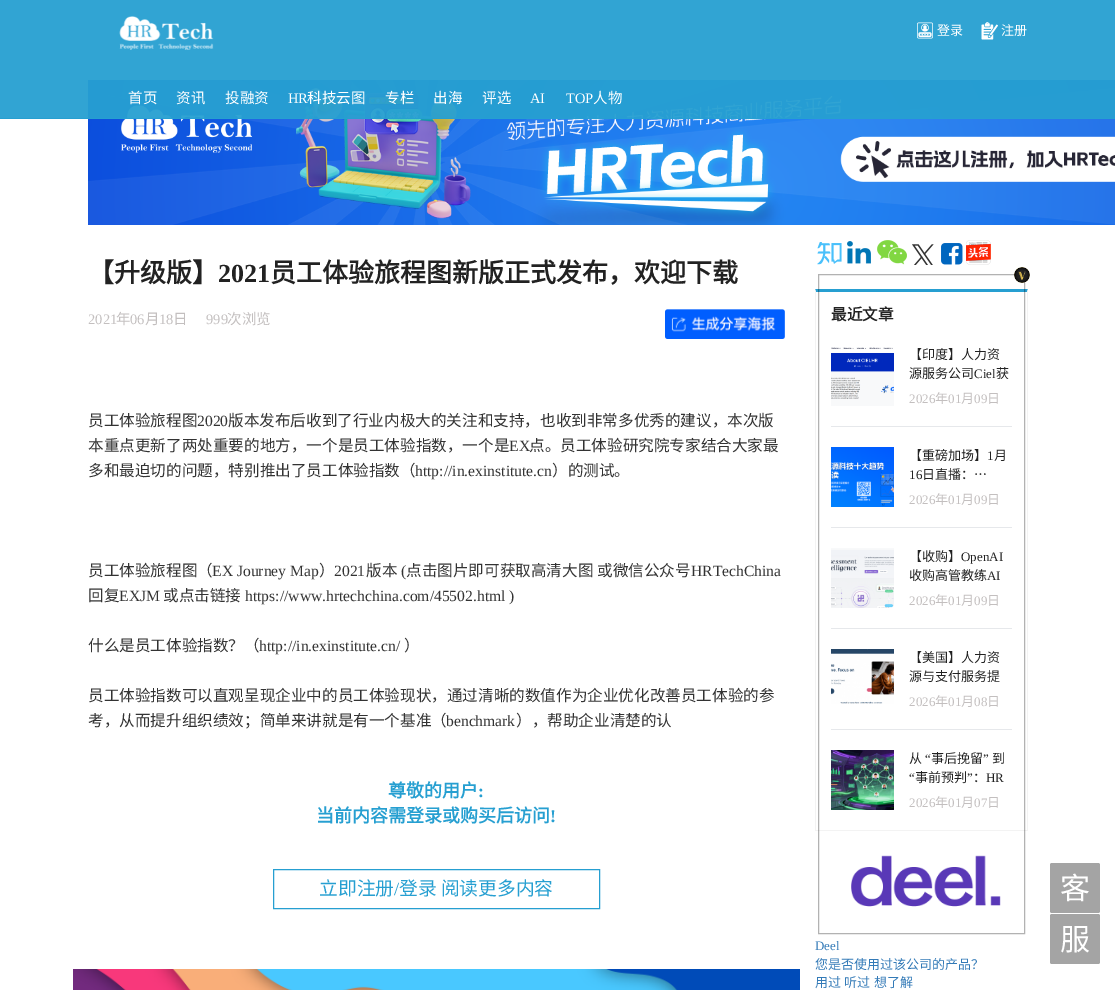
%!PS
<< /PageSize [1115 990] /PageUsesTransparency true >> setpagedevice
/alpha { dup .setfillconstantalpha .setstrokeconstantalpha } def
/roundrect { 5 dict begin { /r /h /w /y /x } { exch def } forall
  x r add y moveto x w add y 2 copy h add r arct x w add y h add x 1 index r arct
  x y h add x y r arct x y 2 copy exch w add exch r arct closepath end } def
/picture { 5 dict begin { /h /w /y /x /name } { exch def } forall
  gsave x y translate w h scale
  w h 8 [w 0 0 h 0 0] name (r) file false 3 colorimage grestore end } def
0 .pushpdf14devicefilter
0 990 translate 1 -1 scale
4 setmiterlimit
1 setgray
0 0 1115 990 rectfill
(img4.rgb) 88 80 1027 145 picture
0.95 alpha
0.149 0.624 0.82 setrgbcolor
0 0 1115 118 rectfill
1 alpha
0 118 1115 1 rectfill
(img1.rgb) 917 22 16 17 picture
/NotoSansCJKSC-Regular [13 0 0 -13 0 0] selectfont
1 setgray
937 35 moveto (登录) show
(img2.rgb) 981 22 17 18 picture
1001 35 moveto (注册) show
(img3.rgb) 119 16 95 34 picture
/NotoSansCJKSC-Regular [14.5 0 0 -14.5 0 0] selectfont
128 103 moveto (首页) show
176 103 moveto (资讯) show
225 103 moveto (投融资) show
/LiberationSerif-Regular [14.5 0 0 -14.5 0 0] selectfont
288 103 moveto (HR) show
/NotoSansCJKSC-Regular [14.5 0 0 -14.5 0 0] selectfont
307 103 moveto (科技云图) show
385 103 moveto (专栏) show
433 103 moveto (出海) show
482 103 moveto (评选) show
/LiberationSerif-Regular [14.5 0 0 -14.5 0 0] selectfont
530 103 moveto (AI) show
566 103 moveto (TOP) show
/NotoSansCJKSC-Regular [14.5 0 0 -14.5 0 0] selectfont
593 103 moveto (人物) show
/NotoSansCJKSC-Bold [26 0 0 -26 0 0] selectfont
0.133 setgray
88 282 moveto (【升级版】) show
/LiberationSerif-Bold [26 0 0 -26 0 0] selectfont
218 282 moveto (2021) show
/NotoSansCJKSC-Bold [26 0 0 -26 0 0] selectfont
270 282 moveto (员工体验旅程图新版正式发布，欢迎下载) show
/LiberationSerif-Regular [14.5 0 0 -14.5 0 0] selectfont
0.765 0.749 0.749 setrgbcolor
88 324 moveto (2021) show
/NotoSansCJKSC-Regular [14.5 0 0 -14.5 0 0] selectfont
116 324 moveto (年) show
/LiberationSerif-Regular [14.5 0 0 -14.5 0 0] selectfont
130 324 moveto (06) show
/NotoSansCJKSC-Regular [14.5 0 0 -14.5 0 0] selectfont
145 324 moveto (月) show
/LiberationSerif-Regular [14.5 0 0 -14.5 0 0] selectfont
159 324 moveto (18) show
/NotoSansCJKSC-Regular [14.5 0 0 -14.5 0 0] selectfont
173 324 moveto (日) show
/LiberationSerif-Regular [14.5 0 0 -14.5 0 0] selectfont
206 324 moveto (999) show
/NotoSansCJKSC-Regular [14.5 0 0 -14.5 0 0] selectfont
227 324 moveto (次浏览) show
(img5.rgb) 665 309 120 30 picture
/NotoSansCJKSC-Regular [15.6 0 0 -15.6 0 0] selectfont
0.2 setgray
88 426 moveto (员工体验旅程图) show
/LiberationSerif-Regular [15.6 0 0 -15.6 0 0] selectfont
197 426 moveto (2020) show
/NotoSansCJKSC-Regular [15.6 0 0 -15.6 0 0] selectfont
228 426 moveto (版本发布后收到了行业内极大的关注和支持，也收到非常多优秀的建议，本次版) show
88 451 moveto (本重点更新了两处重要的地方，一个是员工体验指数，一个是) show
/LiberationSerif-Regular [15.6 0 0 -15.6 0 0] selectfont
509 451 moveto (EX) show
/NotoSansCJKSC-Regular [15.6 0 0 -15.6 0 0] selectfont
529 451 moveto (点。员工体验研究院专家结合大家最) show
88 476 moveto (多和最迫切的问题，特别推出了员工体验指数（) show
/LiberationSerif-Regular [15.6 0 0 -15.6 0 0] selectfont
415 476 moveto (http://in.exinstitute.cn) show
/NotoSansCJKSC-Regular [15.6 0 0 -15.6 0 0] selectfont
552 476 moveto (）的测试。) show
88 576 moveto (员工体验旅程图（) show
/LiberationSerif-Regular [15.6 0 0 -15.6 0 0] selectfont
212 576 moveto (EX Journey Map) show
/NotoSansCJKSC-Regular [15.6 0 0 -15.6 0 0] selectfont
319 576 moveto (）) show
/LiberationSerif-Regular [15.6 0 0 -15.6 0 0] selectfont
334 576 moveto (2021) show
/NotoSansCJKSC-Regular [15.6 0 0 -15.6 0 0] selectfont
366 576 moveto (版本) show
/LiberationSerif-Regular [15.6 0 0 -15.6 0 0] selectfont
401 576 moveto (\() show
/NotoSansCJKSC-Regular [15.6 0 0 -15.6 0 0] selectfont
406 576 moveto (点击图片即可获取高清大图) show
597 576 moveto (或微信公众号) show
/LiberationSerif-Regular [15.6 0 0 -15.6 0 0] selectfont
691 576 moveto (HRTechChina) show
/NotoSansCJKSC-Regular [15.6 0 0 -15.6 0 0] selectfont
88 601 moveto (回复) show
/LiberationSerif-Regular [15.6 0 0 -15.6 0 0] selectfont
119 601 moveto (EXJM) show
/NotoSansCJKSC-Regular [15.6 0 0 -15.6 0 0] selectfont
163 601 moveto (或点击链接) show
/LiberationSerif-Regular [15.6 0 0 -15.6 0 0] selectfont
245 601 moveto (https://www.hrtechchina.com/45502.html \)) show
/NotoSansCJKSC-Regular [15.6 0 0 -15.6 0 0] selectfont
88 651 moveto (什么是员工体验指数？（) show
/LiberationSerif-Regular [15.6 0 0 -15.6 0 0] selectfont
259 651 moveto (http://in.exinstitute.cn/) show
/NotoSansCJKSC-Regular [15.6 0 0 -15.6 0 0] selectfont
404 651 moveto (）) show
88 701 moveto (员工体验指数可以直观呈现企业中的员工体验现状，通过清晰的数值作为企业优化改善员工体验的参) show
88 726 moveto (考，从而提升组织绩效；简单来讲就是有一个基准（) show
/LiberationSerif-Regular [15.6 0 0 -15.6 0 0] selectfont
446 726 moveto (benchmark) show
/NotoSansCJKSC-Regular [15.6 0 0 -15.6 0 0] selectfont
516 726 moveto (），帮助企业清楚的认) show
/NotoSansCJKSC-Bold [18 0 0 -18 0 0] selectfont
0.149 0.624 0.82 setrgbcolor
388 797 moveto (尊敬的用户) show
/LiberationSerif-Bold [18 0 0 -18 0 0] selectfont
478 797 moveto (:) show
/NotoSansCJKSC-Bold [18 0 0 -18 0 0] selectfont
316 822 moveto (当前内容需登录或购买后访问) show
/LiberationSerif-Bold [18 0 0 -18 0 0] selectfont
550 822 moveto (!) show
273.5 869.5 326 39 rectstroke
/NotoSansCJKSC-Regular [18.75 0 0 -18.75 0 0] selectfont
319 895 moveto (立即注册) show
/LiberationSerif-Regular [18.75 0 0 -18.75 0 0] selectfont
394 895 moveto (/) show
/NotoSansCJKSC-Regular [18.75 0 0 -18.75 0 0] selectfont
399 895 moveto (登录 阅读更多内容) show
(img6.rgb) 73 969 727 21 picture
(img7.rgb) 817 242 25 23 picture
(img8.rgb) 847 241 24 23 picture
(img9.rgb) 877 240 30 25 picture
(img10.rgb) 912 244 22 21 picture
(img11.rgb) 941 243 22 22 picture
(img12.rgb) 966 240 25 25 picture
newpath 815 289 moveto 1028 289 lineto 1027 292 lineto 816 292 lineto closepath fill
0.953 setgray
newpath 1028 289 moveto 1028 831 lineto 1027 830 lineto 1027 292 lineto closepath fill
815 830 213 1 rectfill
newpath 815 831 moveto 815 289 lineto 816 292 lineto 816 830 lineto closepath fill
/NotoSansCJKSC-Bold [15.6 0 0 -15.6 0 0] selectfont
0.133 setgray
831 320 moveto (最近文章) show
0.902 0.91 0.922 setrgbcolor
831 426 181 1 rectfill
831 527 181 1 rectfill
831 628 181 1 rectfill
831 729 181 1 rectfill
0.3 alpha
0 setgray
818.5 274.5 206 659 rectstroke
1 alpha
(img13.rgb) 831 347 63 59 picture
/NotoSansCJKSC-Regular [13 0 0 -13 0 0] selectfont
0.133 setgray
909 359 moveto (【印度】人力资) show
909 378 moveto (源服务公司) show
/LiberationSerif-Regular [13 0 0 -13 0 0] selectfont
974 378 moveto (Ciel) show
/NotoSansCJKSC-Regular [13 0 0 -13 0 0] selectfont
996 378 moveto (获) show
/LiberationSerif-Regular [13 0 0 -13 0 0] selectfont
0.765 0.749 0.749 setrgbcolor
909 403 moveto (2026) show
/NotoSansCJKSC-Regular [13 0 0 -13 0 0] selectfont
935 403 moveto (年) show
/LiberationSerif-Regular [13 0 0 -13 0 0] selectfont
948 403 moveto (01) show
/NotoSansCJKSC-Regular [13 0 0 -13 0 0] selectfont
961 403 moveto (月) show
/LiberationSerif-Regular [13 0 0 -13 0 0] selectfont
974 403 moveto (09) show
/NotoSansCJKSC-Regular [13 0 0 -13 0 0] selectfont
987 403 moveto (日) show
(img14.rgb) 831 447 63 60 picture
0.133 setgray
909 460 moveto (【重磅加场】) show
/LiberationSerif-Regular [13 0 0 -13 0 0] selectfont
987 460 moveto (1) show
/NotoSansCJKSC-Regular [13 0 0 -13 0 0] selectfont
994 460 moveto (月) show
/LiberationSerif-Regular [13 0 0 -13 0 0] selectfont
909 479 moveto (16) show
/NotoSansCJKSC-Regular [13 0 0 -13 0 0] selectfont
922 479 moveto (日直播：…) show
/LiberationSerif-Regular [13 0 0 -13 0 0] selectfont
0.765 0.749 0.749 setrgbcolor
909 504 moveto (2026) show
/NotoSansCJKSC-Regular [13 0 0 -13 0 0] selectfont
935 504 moveto (年) show
/LiberationSerif-Regular [13 0 0 -13 0 0] selectfont
948 504 moveto (01) show
/NotoSansCJKSC-Regular [13 0 0 -13 0 0] selectfont
961 504 moveto (月) show
/LiberationSerif-Regular [13 0 0 -13 0 0] selectfont
974 504 moveto (09) show
/NotoSansCJKSC-Regular [13 0 0 -13 0 0] selectfont
987 504 moveto (日) show
(img15.rgb) 831 548 63 60 picture
0.133 setgray
909 561 moveto (【收购】) show
/LiberationSerif-Regular [13 0 0 -13 0 0] selectfont
961 561 moveto (OpenAI) show
/NotoSansCJKSC-Regular [13 0 0 -13 0 0] selectfont
909 580 moveto (收购高管教练) show
/LiberationSerif-Regular [13 0 0 -13 0 0] selectfont
987 580 moveto (AI) show
0.765 0.749 0.749 setrgbcolor
909 605 moveto (2026) show
/NotoSansCJKSC-Regular [13 0 0 -13 0 0] selectfont
935 605 moveto (年) show
/LiberationSerif-Regular [13 0 0 -13 0 0] selectfont
948 605 moveto (01) show
/NotoSansCJKSC-Regular [13 0 0 -13 0 0] selectfont
961 605 moveto (月) show
/LiberationSerif-Regular [13 0 0 -13 0 0] selectfont
974 605 moveto (09) show
/NotoSansCJKSC-Regular [13 0 0 -13 0 0] selectfont
987 605 moveto (日) show
(img16.rgb) 831 649 63 55 picture
0.133 setgray
909 662 moveto (【美国】人力资) show
909 681 moveto (源与支付服务提) show
/LiberationSerif-Regular [13 0 0 -13 0 0] selectfont
0.765 0.749 0.749 setrgbcolor
909 706 moveto (2026) show
/NotoSansCJKSC-Regular [13 0 0 -13 0 0] selectfont
935 706 moveto (年) show
/LiberationSerif-Regular [13 0 0 -13 0 0] selectfont
948 706 moveto (01) show
/NotoSansCJKSC-Regular [13 0 0 -13 0 0] selectfont
961 706 moveto (月) show
/LiberationSerif-Regular [13 0 0 -13 0 0] selectfont
974 706 moveto (08) show
/NotoSansCJKSC-Regular [13 0 0 -13 0 0] selectfont
987 706 moveto (日) show
(img17.rgb) 831 750 63 60 picture
0.133 setgray
909 763 moveto (从) show
/LiberationSerif-Regular [13 0 0 -13 0 0] selectfont
925 763 moveto (“) show
/NotoSansCJKSC-Regular [13 0 0 -13 0 0] selectfont
931 763 moveto (事后挽留) show
/LiberationSerif-Regular [13 0 0 -13 0 0] selectfont
983 763 moveto (”) show
/NotoSansCJKSC-Regular [13 0 0 -13 0 0] selectfont
992 763 moveto (到) show
/LiberationSerif-Regular [13 0 0 -13 0 0] selectfont
909 782 moveto (“) show
/NotoSansCJKSC-Regular [13 0 0 -13 0 0] selectfont
915 782 moveto (事前预判) show
/LiberationSerif-Regular [13 0 0 -13 0 0] selectfont
967 782 moveto (”) show
/NotoSansCJKSC-Regular [13 0 0 -13 0 0] selectfont
973 782 moveto (：) show
/LiberationSerif-Regular [13 0 0 -13 0 0] selectfont
986 782 moveto (HR) show
0.765 0.749 0.749 setrgbcolor
909 807 moveto (2026) show
/NotoSansCJKSC-Regular [13 0 0 -13 0 0] selectfont
935 807 moveto (年) show
/LiberationSerif-Regular [13 0 0 -13 0 0] selectfont
948 807 moveto (01) show
/NotoSansCJKSC-Regular [13 0 0 -13 0 0] selectfont
961 807 moveto (月) show
/LiberationSerif-Regular [13 0 0 -13 0 0] selectfont
974 807 moveto (07) show
/NotoSansCJKSC-Regular [13 0 0 -13 0 0] selectfont
987 807 moveto (日) show
(img18.rgb) 1014 267 16 16 picture
(img19.rgb) 851 855 150 52 picture
/LiberationSerif-Regular [13 0 0 -13 0 0] selectfont
0.2 0.478 0.718 setrgbcolor
815 950 moveto (Deel) show
/NotoSansCJKSC-Regular [13 0 0 -13 0 0] selectfont
815 969 moveto (您是否使用过该公司的产品？) show
815 987 moveto (用过) show
844 987 moveto (听过) show
874 987 moveto (想了解) show
0.643 setgray
1050 863 50 50 2 roundrect fill
/NotoSansCJKSC-Regular [30 0 0 -30 0 0] selectfont
1 setgray
1060 899 moveto (客) show
0.643 setgray
1050 914 50 50 2 roundrect fill
1 setgray
1060 950 moveto (服) show
.poppdf14devicefilter showpage
